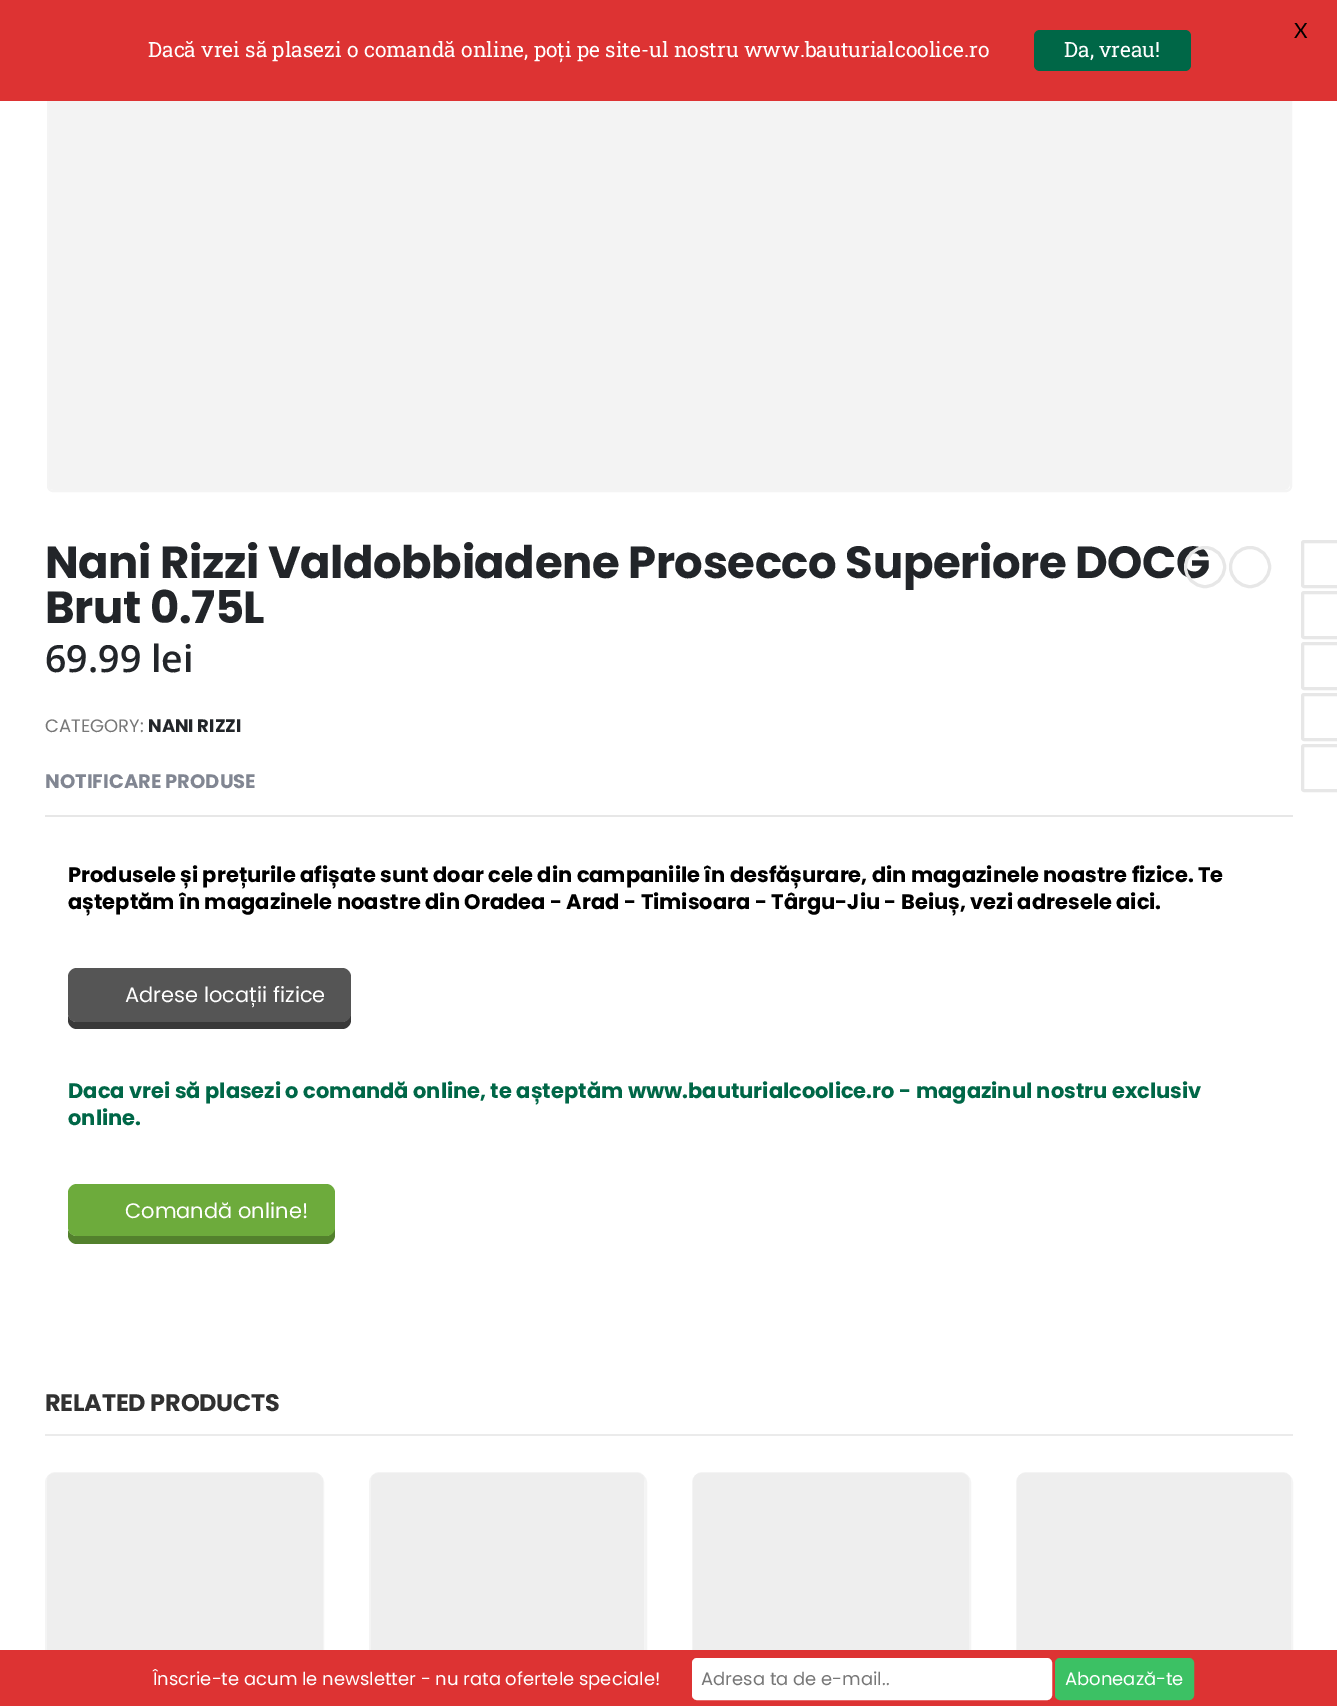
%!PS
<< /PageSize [1337 1706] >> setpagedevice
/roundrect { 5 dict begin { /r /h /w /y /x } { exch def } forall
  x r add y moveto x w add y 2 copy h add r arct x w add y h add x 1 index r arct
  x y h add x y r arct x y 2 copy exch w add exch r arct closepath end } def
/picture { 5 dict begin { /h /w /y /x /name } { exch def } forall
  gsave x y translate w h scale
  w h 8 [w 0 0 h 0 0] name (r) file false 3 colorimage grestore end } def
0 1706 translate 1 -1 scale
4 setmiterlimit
1 setgray
0 0 1337 1706 rectfill
0.957 setgray
2 setlinewidth
48 -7 1243 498 5 roundrect stroke
0.867 0.2 0.2 setrgbcolor
0 0 1337 101 rectfill
/Lato-Regular [21 0 0 -21 0 0] selectfont
0 setgray
1294 38 moveto (X) show
/RobotoSlab-Regular [21 0 0 -21 0 0] selectfont
1 setgray
148 57 moveto (Dacă vrei să plasezi o comandă online, poți pe site-ul nostru www.bauturialcoolice.ro) show
0 0.404 0.278 setrgbcolor
1034 30 157 41 6 roundrect fill
1 setgray
1064 57 moveto (Da, vreau!) show
(img1.rgb) 49 101 1241 389 picture
/Poppins-Bold [45 0 0 -45 0 0] selectfont
0.133 0.145 0.161 setrgbcolor
45 578 moveto -0.45 0 (Nani Rizzi Valdobbiadene Prosecco Superiore DOCG) ashow
45 623 moveto -0.45 0 (Brut 0.75L) ashow
0.906 setgray
3 setlinewidth
newpath 1205 567 19.5 0 360 arc closepath stroke
newpath 1250 567 19.5 0 360 arc closepath stroke
1302.5 541.5 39 45 1.5 roundrect stroke
1302.5 592.5 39 45 1.5 roundrect stroke
1302.5 643.5 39 45 1.5 roundrect stroke
1302.5 694.5 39 45 1.5 roundrect stroke
1302.5 745.5 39 45 1.5 roundrect stroke
/OpenSans-SemiBold [37.5 0 0 -37.5 0 0] selectfont
0.133 0.145 0.161 setrgbcolor
45 672 moveto (69.99 lei) show
/Poppins-Regular [18 0 0 -18 0 0] selectfont
0.467 setgray
45 732 moveto (CATEGORY:) show
/Poppins-Bold [18 0 0 -18 0 0] selectfont
0.133 0.145 0.161 setrgbcolor
148 732 moveto (NANI RIZZI) show
/Poppins-Bold [19.5 0 0 -19.5 0 0] selectfont
0.506 0.525 0.573 setrgbcolor
45 788 moveto (NOTIFICARE PRODUSE) show
0.906 setgray
45 815 1248 2 rectfill
/Poppins-Bold [21 0 0 -21 0 0] selectfont
0 setgray
68 882 moveto (Produsele și prețurile afișate sunt doar cele din campaniile în desfășurare, din magazinele noastre fizice. Te) show
68 909 moveto (așteptăm în magazinele noastre din Oradea - Arad - Timisoara - Târgu-Jiu - Beiuș, vezi adresele aici.) show
0.224 setgray
newpath 68 1015 moveto 68 1020 lineto 68 1025 72 1029 77 1029 curveto 342 1029 lineto 347 1029 351 1025 351 1020 curveto 351 1012 lineto 351 1017 347 1022 342 1022 curveto 76 1022 lineto 73 1022 69 1019 68 1015 curveto closepath fill
0.333 setgray
68 968 283 54 9 roundrect fill
/Poppins-Regular [21 0 0 -21 0 0] selectfont
1 setgray
125 1002 moveto (Adrese locații fizice) show
/Poppins-Bold [21 0 0 -21 0 0] selectfont
0 0.404 0.278 setrgbcolor
68 1098 moveto (Daca vrei să plasezi o comandă online, te așteptăm www.bauturialcoolice.ro - magazinul nostru exclusiv) show
68 1125 moveto (online.) show
0.325 0.506 0.176 setrgbcolor
newpath 68 1230 moveto 68 1235 lineto 68 1240 72 1244 77 1244 curveto 326 1244 lineto 331 1244 335 1240 335 1235 curveto 335 1200 lineto 334 1197 lineto 334 1227 lineto 334 1232 330 1236 326 1236 curveto 76 1236 lineto 73 1236 69 1233 68 1230 curveto closepath fill
0.427 0.671 0.235 setrgbcolor
68 1184 267 52 9 roundrect fill
/Poppins-Regular [21 0 0 -21 0 0] selectfont
1 setgray
125 1218 moveto (Comandă online!) show
0.922 setgray
45 1434 1248 2 rectfill
/Poppins-Bold [24 0 0 -24 0 0] selectfont
0.192 setgray
45 1411 moveto -0.25 0 (RELATED PRODUCTS) ashow
0.957 setgray
2 setlinewidth
46 1473 277 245 10 roundrect stroke
(img2.rgb) 47 1473 276 177 picture
370 1473 276 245 10 roundrect stroke
(img3.rgb) 371 1473 274 177 picture
693 1473 277 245 10 roundrect stroke
(img4.rgb) 693 1473 276 177 picture
1017 1473 275 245 10 roundrect stroke
(img5.rgb) 1017 1473 274 177 picture
0.867 0.2 0.2 setrgbcolor
0 1650 1337 56 rectfill
/Poppins-Regular [18 0 0 -18 0 0] selectfont
1 setgray
153 1685 moveto (Înscrie-te acum le newsletter - nu rata ofertele speciale!) show
693 1659 358 40 4 roundrect gsave fill grestore
stroke
0.467 setgray
701 1685 moveto (Adresa ta de e-mail..) show
0.235 0.757 0.392 setrgbcolor
1056 1659 137 40 4 roundrect gsave fill grestore
stroke
1 setgray
1065 1685 moveto (Abonează-te) show
showpage
